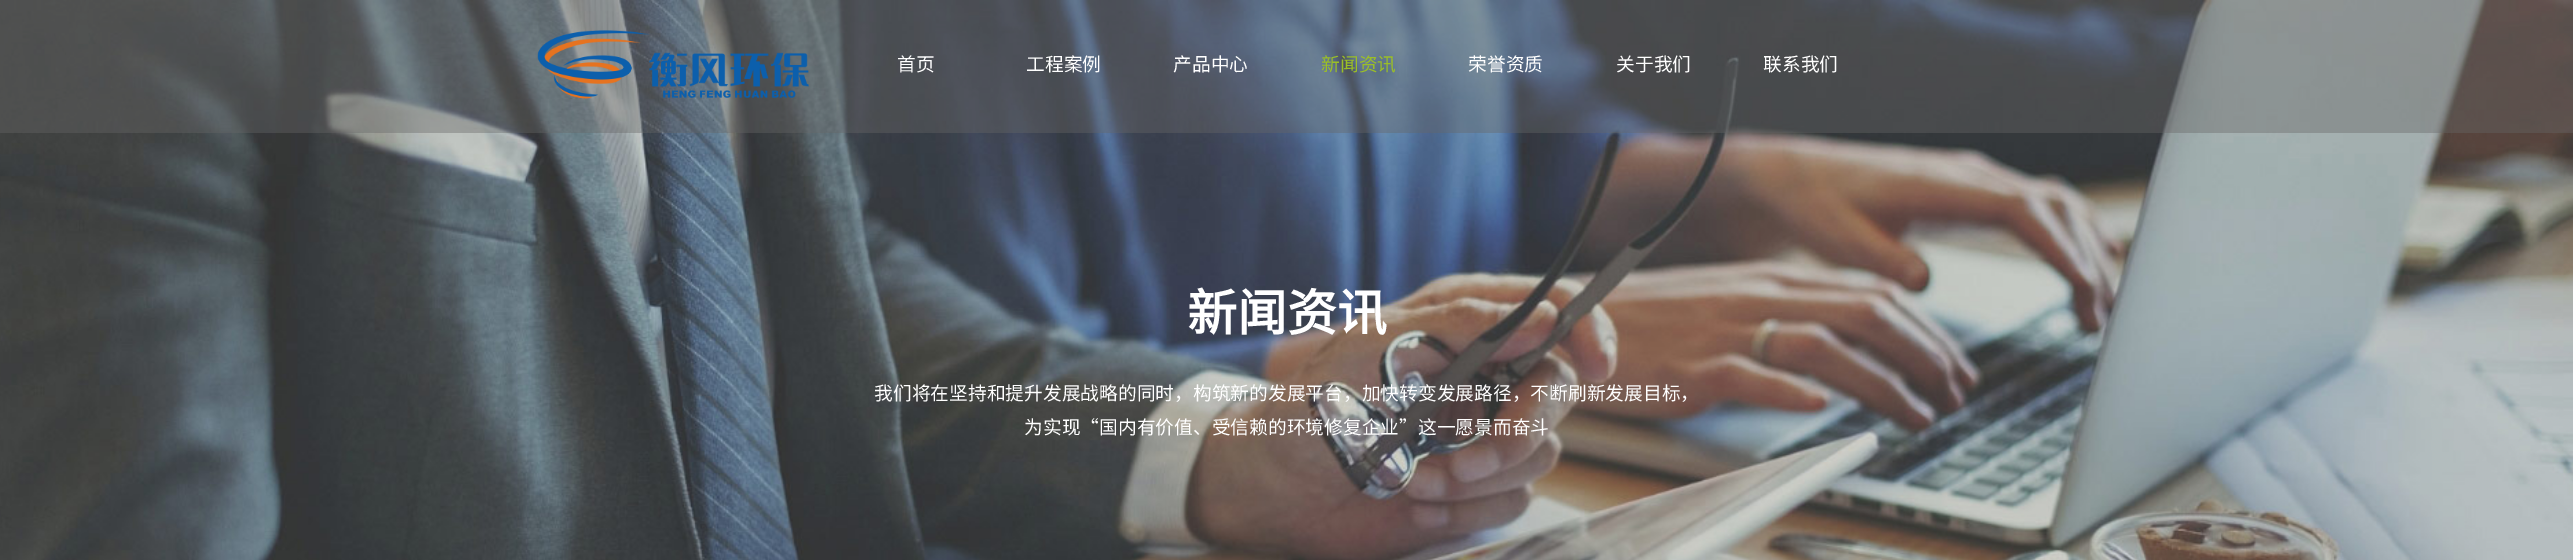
%!PS
<< /PageSize [2573 560] /PageUsesTransparency true >> setpagedevice
/alpha { dup .setfillconstantalpha .setstrokeconstantalpha } def
/picture { 5 dict begin { /h /w /y /x /name } { exch def } forall
  gsave x y translate w h scale
  w h 8 [w 0 0 h 0 0] name (r) file false 3 colorimage grestore end } def
0 .pushpdf14devicefilter
0 560 translate 1 -1 scale
4 setmiterlimit
1 setgray
0 0 2573 560 rectfill
(img1.rgb) 0 0 2573 560 picture
0.4 alpha
0.4 setgray
0 0 2573 133 rectfill
1 alpha
(img2.rgb) 537 30 272 69 picture
/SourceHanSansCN-Regular [18.75 0 0 -18.75 0 0] selectfont
1 setgray
897 71 moveto (首页) show
1026 71 moveto (工程案例) show
1173 71 moveto (产品中心) show
0.608 0.749 0.149 setrgbcolor
1321 71 moveto (新闻资讯) show
1 setgray
1468 71 moveto (荣誉资质) show
1616 71 moveto (关于我们) show
1763 71 moveto (联系我们) show
/SourceHanSansCN-Bold [50 0 0 -50 0 0] selectfont
1187 331 moveto (新闻资讯) show
/SourceHanSansCN-Regular [18.75 0 0 -18.75 0 0] selectfont
874 400 moveto (我们将在坚持和提升发展战略的同时，构筑新的发展平台，加快转变发展路径，不断刷新发展目标，) show
1024 434 moveto (为实现“国内有价值、受信赖的环境修复企业”这一愿景而奋斗) show
.poppdf14devicefilter showpage
